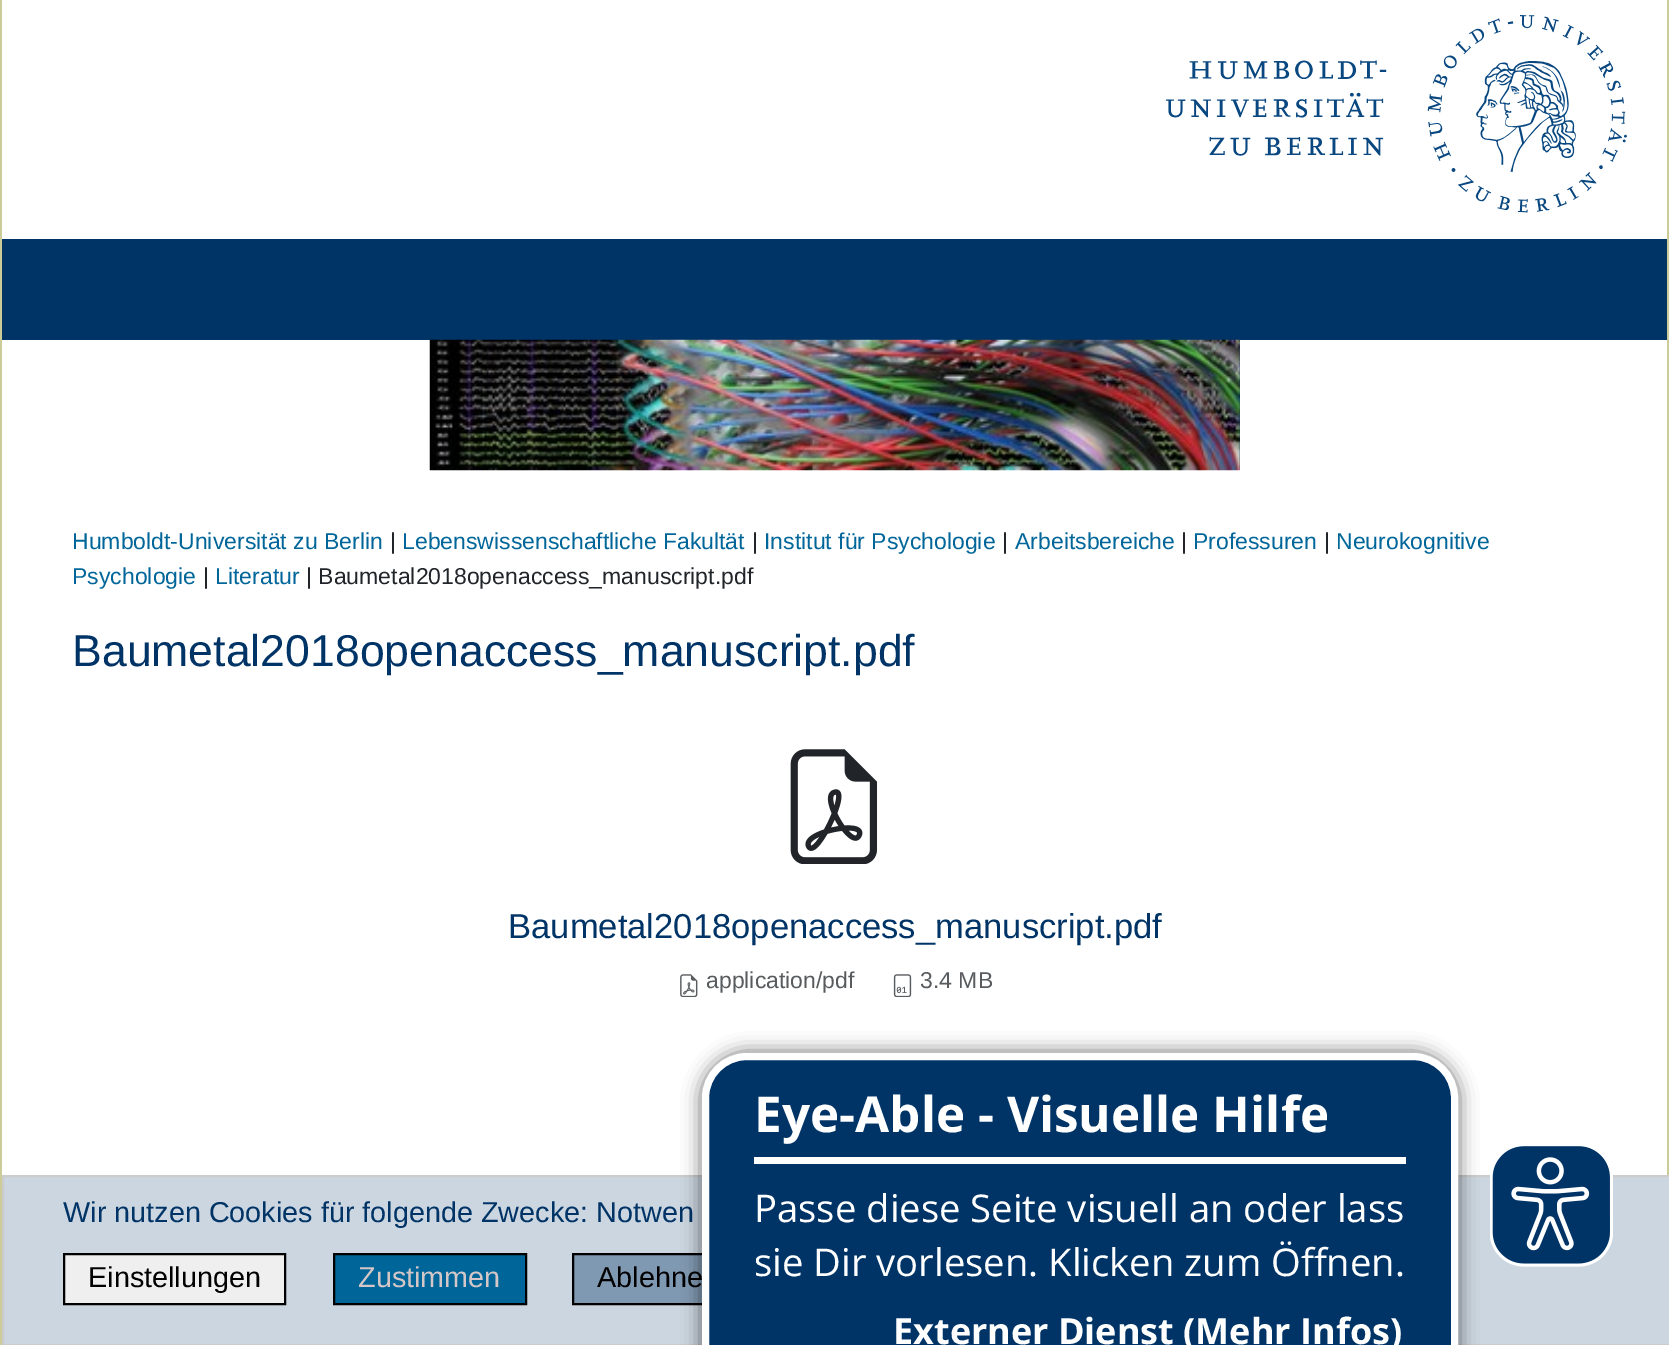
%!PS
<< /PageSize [1669 1345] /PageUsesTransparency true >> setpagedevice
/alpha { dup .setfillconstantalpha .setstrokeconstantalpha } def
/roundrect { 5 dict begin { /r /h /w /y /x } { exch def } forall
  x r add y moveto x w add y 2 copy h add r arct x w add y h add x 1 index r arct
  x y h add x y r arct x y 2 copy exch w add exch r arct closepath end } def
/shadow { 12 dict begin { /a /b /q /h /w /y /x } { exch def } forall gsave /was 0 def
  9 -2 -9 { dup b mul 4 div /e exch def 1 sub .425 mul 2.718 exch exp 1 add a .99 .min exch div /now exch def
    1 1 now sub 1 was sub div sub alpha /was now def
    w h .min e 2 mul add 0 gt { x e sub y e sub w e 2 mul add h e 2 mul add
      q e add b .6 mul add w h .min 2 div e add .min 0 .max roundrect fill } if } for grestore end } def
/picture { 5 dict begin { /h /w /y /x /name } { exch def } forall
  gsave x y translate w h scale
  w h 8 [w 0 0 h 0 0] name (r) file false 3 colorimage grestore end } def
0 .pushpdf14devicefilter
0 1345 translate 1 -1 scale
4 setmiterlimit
1 setgray
0 0 1669 1345 rectfill
(img1.rgb) 1166 15 461 198 picture
0 0.2 0.4 setrgbcolor
2 239 1665 101 rectfill
(img2.rgb) 429 339 811 132 picture
0.8 0.8 0.6 setrgbcolor
1667 0 2 1175 rectfill
0 0 2 1345 rectfill
/LiberationSans-Regular [23 0 0 -23 0 0] selectfont
0 0.4 0.6 setrgbcolor
72 549 moveto (Humboldt-Universität zu Berlin) show
0.129 0.145 0.161 setrgbcolor
390 549 moveto (|) show
0 0.4 0.6 setrgbcolor
402 549 moveto (Lebenswissenschaftliche Fakultät) show
0.129 0.145 0.161 setrgbcolor
752 549 moveto (|) show
0 0.4 0.6 setrgbcolor
764 549 moveto (Institut für Psychologie) show
0.129 0.145 0.161 setrgbcolor
1002 549 moveto (|) show
0 0.4 0.6 setrgbcolor
1015 549 moveto (Arbeitsbereiche) show
0.129 0.145 0.161 setrgbcolor
1181 549 moveto (|) show
0 0.4 0.6 setrgbcolor
1193 549 moveto (Professuren) show
0.129 0.145 0.161 setrgbcolor
1324 549 moveto (|) show
0 0.4 0.6 setrgbcolor
1336 549 moveto (Neurokognitive) show
72 584 moveto (Psychologie) show
0.129 0.145 0.161 setrgbcolor
203 584 moveto (|) show
0 0.4 0.6 setrgbcolor
215 584 moveto (Literatur) show
0.129 0.145 0.161 setrgbcolor
306 584 moveto (| Baumetal2018openaccess_manuscript.pdf) show
/LiberationSans-Regular [44.6 0 0 -44.6 0 0] selectfont
0 0.2 0.4 setrgbcolor
72 666 moveto (Baumetal2018openaccess_manuscript.pdf) show
(img3.rgb) 790 749 88 115 picture
/LiberationSans-Regular [34.6 0 0 -34.6 0 0] selectfont
508 938 moveto (Baumetal2018openaccess_manuscript.pdf) show
(img4.rgb) 680 974 18 23 picture
/LiberationSans-Regular [23 0 0 -23 0 0] selectfont
0.349 0.361 0.373 setrgbcolor
706 988 moveto (application/pdf) show
(img5.rgb) 893 974 19 23 picture
920 988 moveto (3.4 MB) show
0.8 0.839 0.878 setrgbcolor
newpath 3 1176 moveto 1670 1176 lineto 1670 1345 lineto 3 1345 lineto closepath gsave fill grestore
0.8 setgray
2 setlinewidth
stroke
/LiberationSans-Regular [28.8 0 0 -28.8 0 0] selectfont
0 0.2 0.4 setrgbcolor
63 1222 moveto (Wir nutzen Cookies für folgende Zwecke: Notwen) show
0.937 setgray
newpath 64 1254 moveto 285 1254 lineto 285 1304 lineto 64 1304 lineto closepath gsave fill grestore
0 setgray
stroke
88 1287 moveto (Einstellungen) show
0 0.4 0.6 setrgbcolor
newpath 334 1254 moveto 526 1254 lineto 526 1304 lineto 334 1304 lineto closepath gsave fill grestore
0 setgray
stroke
0.835 0.78 0.78 setrgbcolor
358 1287 moveto (Zustimmen) show
0.502 0.6 0.698 setrgbcolor
574 1255 128 48 rectfill
0 setgray
573 1254 171 50 rectstroke
597 1287 moveto (Ablehne) show
700 1051 760 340 47 9 0.5 shadow
0 0.2 0.4 setrgbcolor
705.5 1056.5 749 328 41.5 roundrect gsave fill grestore
1 setgray
7 setlinewidth
stroke
754 1157 652 7 rectfill
/OpenSans-Bold [49.5 0 0 -49.5 0 0] selectfont
754 1132 moveto (Eye-Able - Visuelle Hilfe) show
/OpenSans-Regular [38.25 0 0 -38.25 0 0] selectfont
754 1222 moveto (Passe diese Seite visuell an oder lass) show
754 1276 moveto (sie Dir vorlesen. Klicken zum Öffnen.) show
/OpenSans-Bold [36 0 0 -36 0 0] selectfont
893 1344 moveto (Externer Dienst \(Mehr Infos\)) show
(img6.rgb) 1490 1146 123 121 picture
.poppdf14devicefilter showpage
